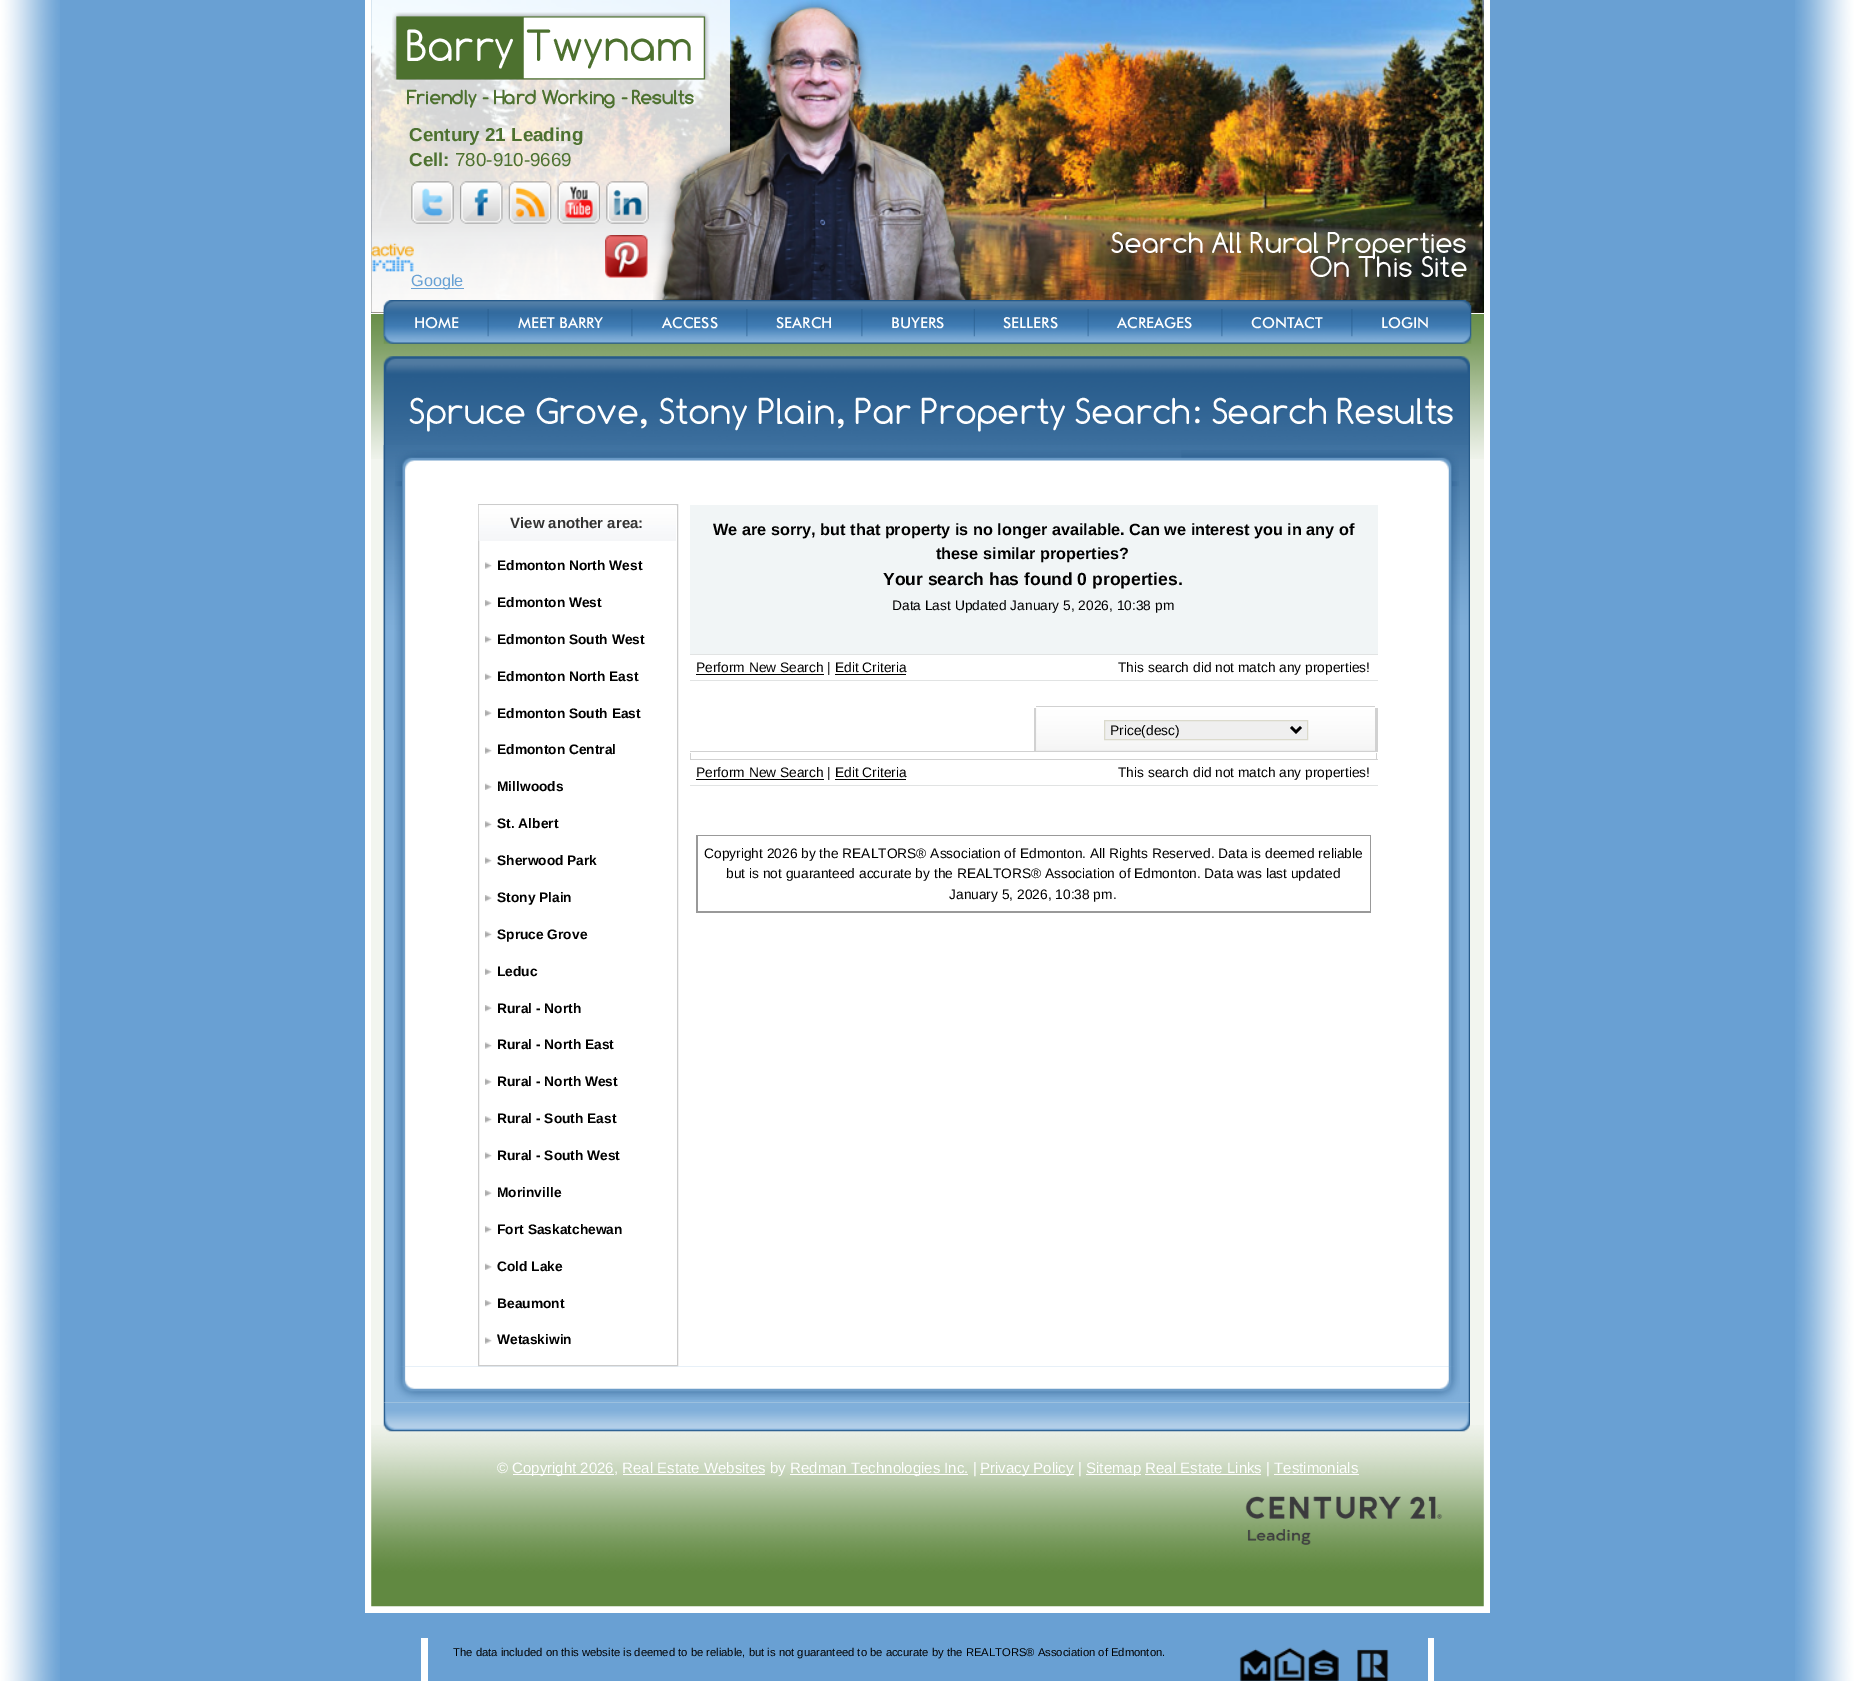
%!PS
<< /PageSize [1854 1681] >> setpagedevice
/picture { 5 dict begin { /h /w /y /x /name } { exch def } forall
  gsave x y translate w h scale
  w h 8 [w 0 0 h 0 0] name (r) file false 3 colorimage grestore end } def
0 1681 translate 1 -1 scale
4 setmiterlimit
0.412 0.627 0.827 setrgbcolor
0 0 1854 1681 rectfill
(img1.rgb) 1795 0 59 1681 picture
(img2.rgb) 0 0 60 1681 picture
(img18.rgb) 371 300 1113 159 picture
1 setgray
1484 0 6 1613 rectfill
365 313 1125 1 rectfill
365 0 6 314 rectfill
(img13.rgb) 371 0 1113 313 picture
(img14.rgb) 371 0 1113 313 picture
(img15.rgb) 371 0 1113 313 picture
(img16.rgb) 371 0 1113 313 picture
(img17.rgb) 371 0 1113 313 picture
(img3.rgb) 371 0 359 313 picture
(img4.rgb) 392 12 318 68 picture
/Comfortaa-Regular [45 0 0 -45 0 0] selectfont
406 61 moveto (Barry) show
0.302 0.443 0.184 setrgbcolor
526 61 moveto (Twynam) show
/Comfortaa-Bold [20 0 0 -20 0 0] selectfont
407 104 moveto (Friendly - Hard Working - Results) show
/LiberationSans-Bold [18.75 0 0 -18.75 0 0] selectfont
409 141 moveto (Century 21 Leading) show
409 166 moveto (Cell:) show
/LiberationSans-Regular [18.75 0 0 -18.75 0 0] selectfont
455 166 moveto (780-910-9669) show
(img5.rgb) 411 181 43 43 picture
(img6.rgb) 460 181 43 43 picture
(img7.rgb) 508 181 44 43 picture
(img8.rgb) 557 181 43 43 picture
(img9.rgb) 606 181 43 43 picture
(img10.rgb) 371 243 43 29 picture
(img11.rgb) 605 235 43 43 picture
0.412 0.631 0.831 setrgbcolor
411 288 53 1 rectfill
/LiberationSans-Regular [16.25 0 0 -16.25 0 0] selectfont
411 286 moveto (Google) show
(img12.rgb) 653 0 316 300 picture
/Comfortaa-Regular [30 0 0 -30 0 0] selectfont
1 setgray
1111 253 moveto (Search All Rural Properties) show
1310 277 moveto (On This Site) show
0.949 0.961 0.937 setrgbcolor
371 459 1113 1147 rectfill
1 setgray
365 1606 1125 7 rectfill
365 314 6 1299 rectfill
(img19.rgb) 371 1425 1113 182 picture
(img20.rgb) 383 300 1089 44 picture
(img21.rgb) 383 308 2 29 picture
/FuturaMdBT-Medium [15 0 0 -15 0 0] selectfont
414 328 moveto (HOME) show
(img22.rgb) 487 309 2 28 picture
518 328 moveto (MEET BARRY) show
(img23.rgb) 631 309 2 28 picture
662 328 moveto (ACCESS) show
(img23.rgb) 746 309 2 28 picture
776 328 moveto (SEARCH) show
(img24.rgb) 861 309 2 28 picture
891 328 moveto (BUYERS) show
(img25.rgb) 973 309 2 28 picture
1003 328 moveto (SELLERS) show
(img22.rgb) 1087 309 2 28 picture
1117 328 moveto (ACREAGES) show
(img23.rgb) 1221 309 2 28 picture
1251 328 moveto (CONTACT) show
(img26.rgb) 1351 309 2 28 picture
1381 328 moveto (LOGIN) show
(img27.rgb) 383 1402 1087 30 picture
(img28.rgb) 383 356 1087 89 picture
/Comfortaa-Regular [37.5 0 0 -37.5 0 0] selectfont
409 424 moveto (Spruce Grove, Stony Plain, Par Property Search: Search Results) show
(img29.rgb) 383 445 1087 958 picture
(img30.rgb) 383 445 1086 285 picture
(img31.rgb) 395 450 1064 37 picture
(img32.rgb) 394 1366 1066 34 picture
(img33.rgb) 394 481 1066 886 picture
0.8 setgray
478.5 504.5 199 861 rectstroke
(img34.rgb) 478 505 198 36 picture
/LiberationSans-Bold [15 0 0 -15 0 0] selectfont
0.2 setgray
510 528 moveto (View another area:) show
(img35.rgb) 485 562 7 7 picture
/LiberationSans-Bold [13.75 0 0 -13.75 0 0] selectfont
0 setgray
497 570 moveto (Edmonton North West) show
(img36.rgb) 485 600 7 7 picture
497 607 moveto (Edmonton West) show
(img37.rgb) 485 636 7 7 picture
497 644 moveto (Edmonton South West) show
(img38.rgb) 485 673 7 7 picture
497 681 moveto (Edmonton North East) show
(img36.rgb) 485 710 7 7 picture
497 718 moveto (Edmonton South East) show
(img35.rgb) 485 747 7 7 picture
497 754 moveto (Edmonton Central) show
(img38.rgb) 485 783 7 7 picture
497 791 moveto (Millwoods) show
(img37.rgb) 485 821 7 7 picture
497 828 moveto (St. Albert) show
(img35.rgb) 485 857 7 7 picture
497 865 moveto (Sherwood Park) show
(img36.rgb) 485 895 7 7 picture
497 902 moveto (Stony Plain) show
(img37.rgb) 485 931 7 7 picture
497 939 moveto (Spruce Grove) show
(img38.rgb) 485 968 7 7 picture
497 976 moveto (Leduc) show
(img36.rgb) 485 1005 7 7 picture
497 1013 moveto (Rural - North) show
(img35.rgb) 485 1042 7 7 picture
497 1049 moveto (Rural - North East) show
(img38.rgb) 485 1078 7 7 picture
497 1086 moveto (Rural - North West) show
(img37.rgb) 485 1116 7 7 picture
497 1123 moveto (Rural - South East) show
(img35.rgb) 485 1152 7 7 picture
497 1160 moveto (Rural - South West) show
(img36.rgb) 485 1190 7 7 picture
497 1197 moveto (Morinville) show
(img37.rgb) 485 1226 7 7 picture
497 1234 moveto (Fort Saskatchewan) show
(img38.rgb) 485 1263 7 7 picture
497 1271 moveto (Cold Lake) show
(img36.rgb) 485 1300 7 7 picture
497 1308 moveto (Beaumont) show
(img35.rgb) 485 1337 7 7 picture
497 1344 moveto (Wetaskiwin) show
0.945 0.961 0.965 setrgbcolor
690 505 688 149 rectfill
/LiberationSans-Bold [16.25 0 0 -16.25 0 0] selectfont
0 setgray
713 535 moveto (We are sorry, but that property is no longer available. Can we interest you in any of) show
936 559 moveto (these similar properties?) show
/LiberationSans-Bold [17.5 0 0 -17.5 0 0] selectfont
883 585 moveto (Your search has found 0 properties.) show
/LiberationSans-Regular [13.75 0 0 -13.75 0 0] selectfont
892 610 moveto (Data Last Updated January 5, 2026, 10:38 pm) show
0.882 0.89 0.89 setrgbcolor
690 654 688 1 rectfill
0 setgray
696 674 128 1 rectfill
696 672 moveto (Perform New Search | Edit Criteria) show
835 674 71 1 rectfill
1118 672 moveto (This search did not match any properties!) show
0.882 0.89 0.89 setrgbcolor
690 680 688 1 rectfill
0.82 setgray
1036 706 339 1 rectfill
1034 708 3 43 rectfill
(img39.rgb) 1036 708 339 43 picture
0.937 setgray
newpath 1104.5 720.5 moveto 1307.5 720.5 lineto 1307.5 739.5 lineto 1104.5 739.5 lineto closepath gsave fill grestore
0.859 0.855 0.8 setrgbcolor
stroke
0 setgray
2.5 setlinewidth
newpath 1291 727 moveto 1296 732 lineto 1301 727 lineto stroke
1110 735 moveto (Price\(desc\)) show
0.82 setgray
1375 708 3 43 rectfill
690 751 688 1 rectfill
690 753 1 6 rectfill
1376 753 1 6 rectfill
690 759 688 1 rectfill
0 setgray
696 779 128 1 rectfill
696 777 moveto (Perform New Search | Edit Criteria) show
835 779 71 1 rectfill
1118 777 moveto (This search did not match any properties!) show
0.882 0.89 0.89 setrgbcolor
690 785 688 1 rectfill
0.6 setgray
696 835 675 78 rectfill
1 setgray
698 836 672 75 rectfill
0 setgray
704 858 moveto (Copyright 2026 by the REALTORS® Association of Edmonton. All Rights Reserved. Data is deemed reliable) show
726 878 moveto (but is not guaranteed accurate by the REALTORS® Association of Edmonton. Data was last updated) show
949 899 moveto (January 5, 2026, 10:38 pm.) show
/LiberationSans-Regular [15 0 0 -15 0 0] selectfont
1 setgray
497 1473 moveto (©) show
513 1474 101 1 rectfill
512 1473 moveto (Copyright 2026, Real Estate Websites by) show
790 1474 178 1 rectfill
790 1473 moveto (Redman Technologies Inc. |) show
980 1474 94 1 rectfill
980 1473 moveto (Privacy Policy |) show
1086 1474 55 1 rectfill
1086 1473 moveto (Sitemap Real Estate Links | Testimonials) show
623 1474 142 1 rectfill
1145 1474 116 1 rectfill
1274 1474 85 1 rectfill
(img40.rgb) 1245 1496 198 49 picture
1428 1638 6 43 rectfill
421 1638 7 43 rectfill
/LiberationSans-Regular [11.25 0 0 -11.25 0 0] selectfont
0 setgray
453 1656 moveto (The data included on this website is deemed to be reliable, but is not guaranteed to be accurate by the REALTORS® Association of Edmonton.) show
(img41.rgb) 1239 1647 150 34 picture
showpage
